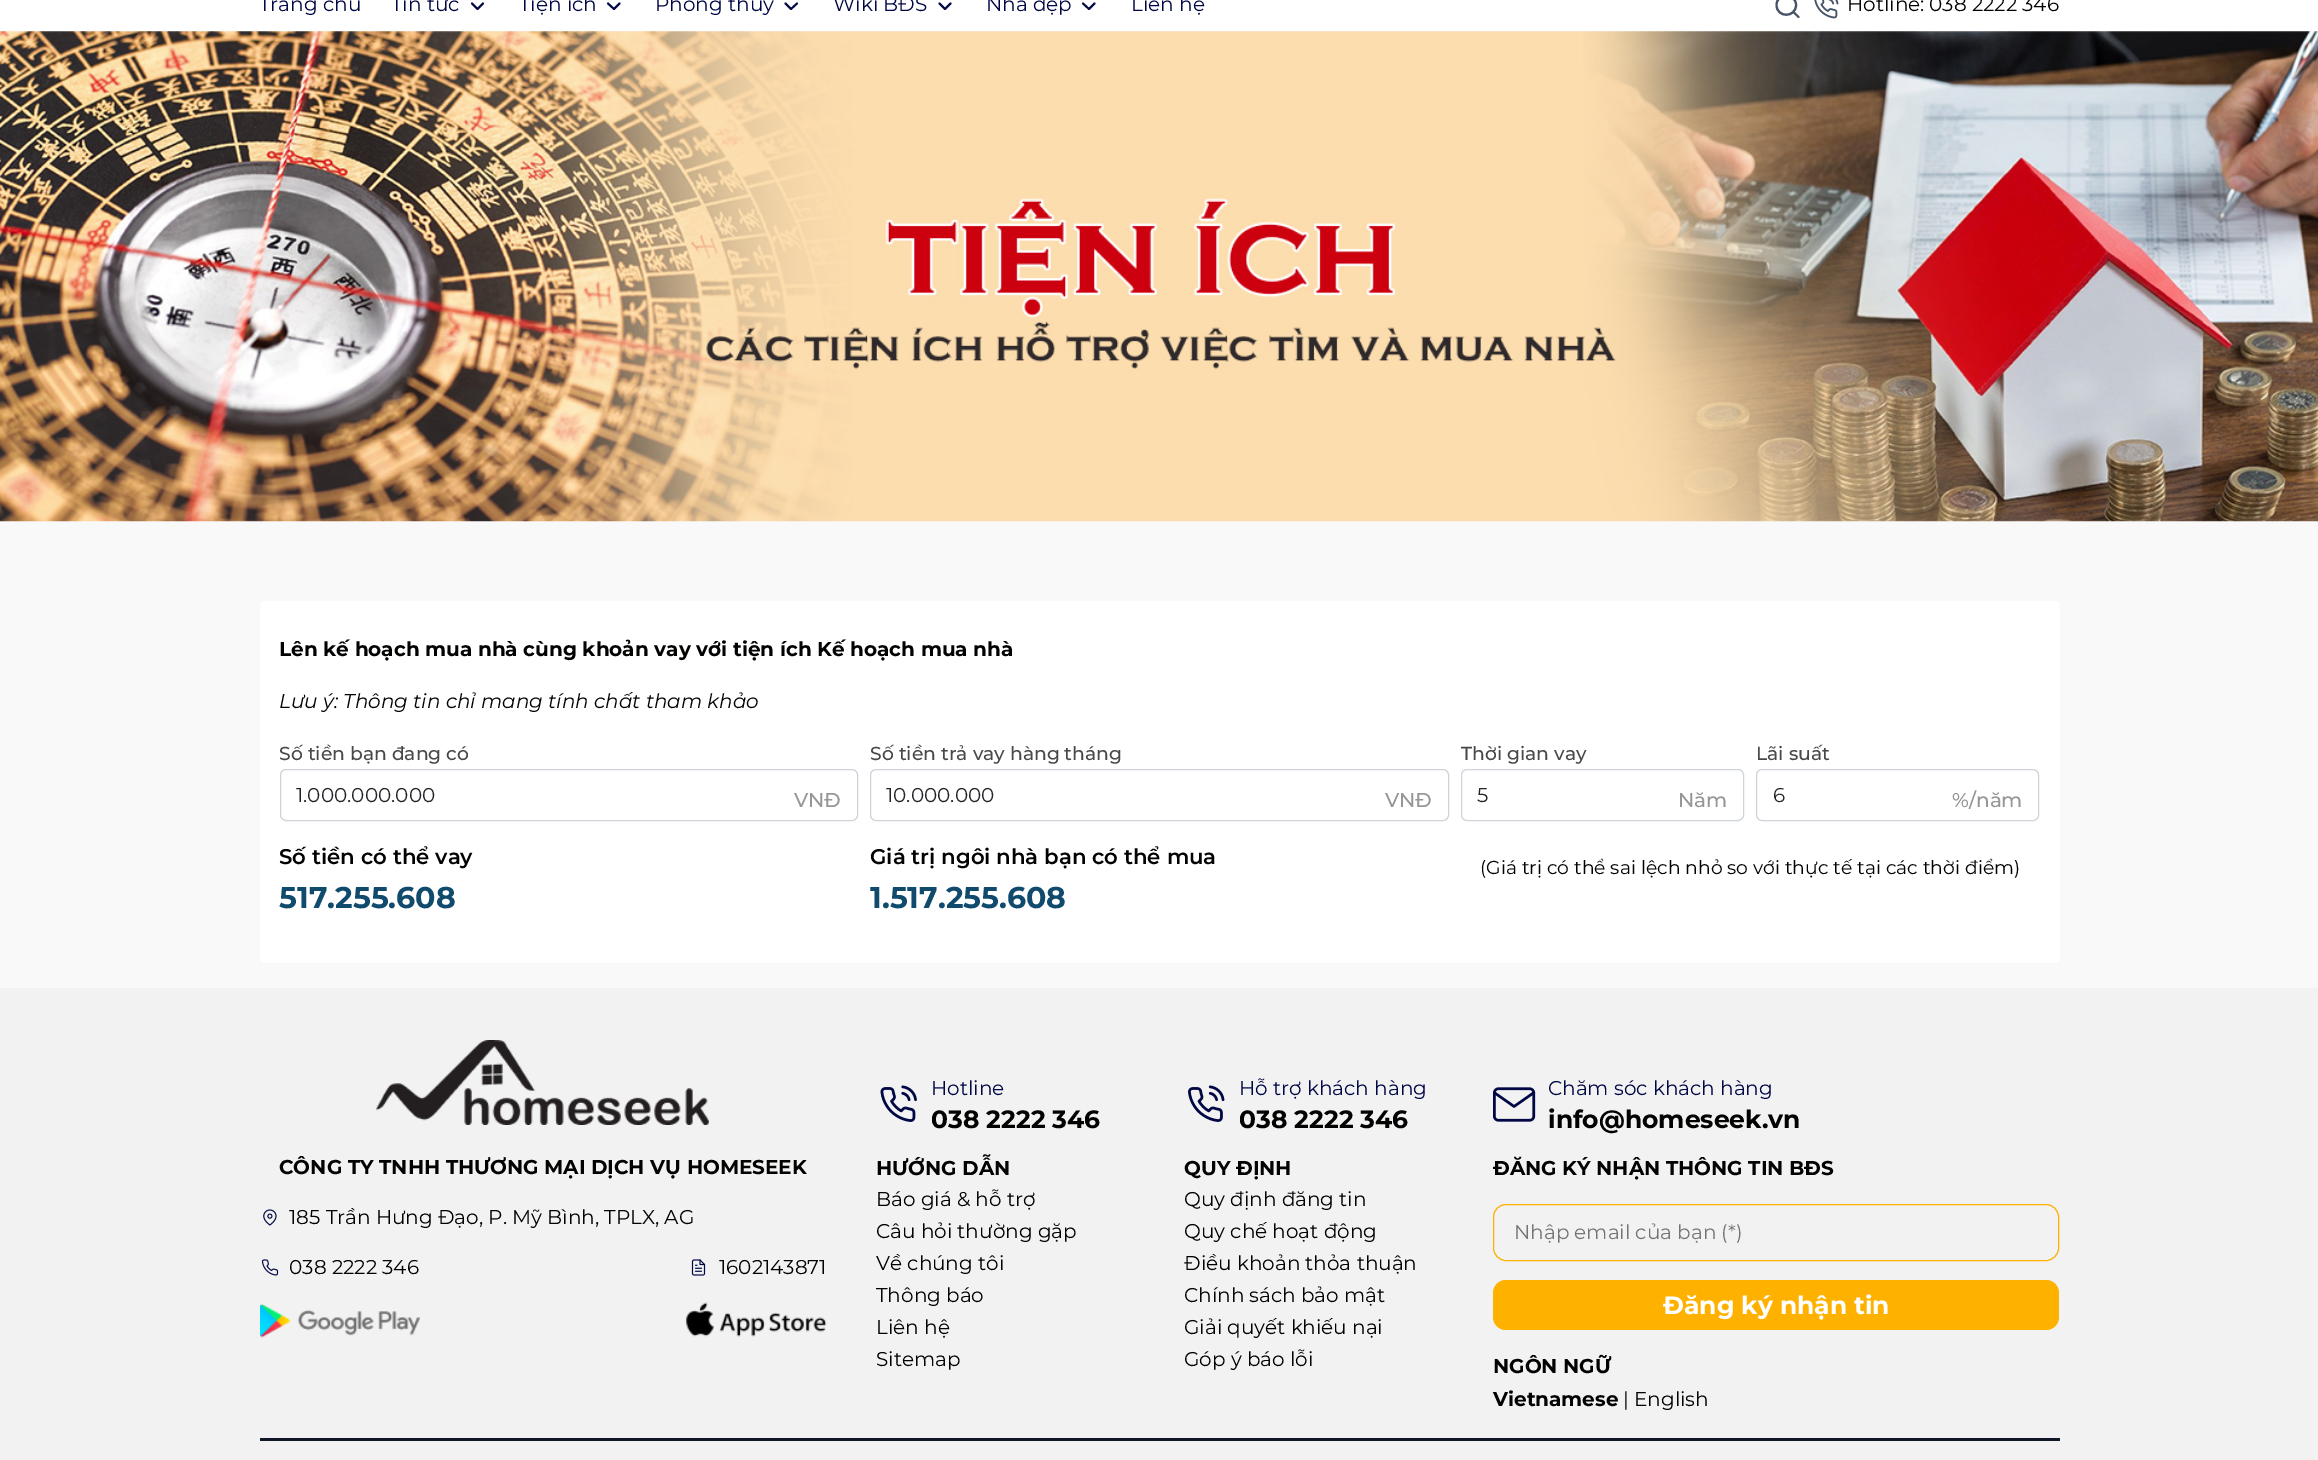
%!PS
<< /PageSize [2318 1460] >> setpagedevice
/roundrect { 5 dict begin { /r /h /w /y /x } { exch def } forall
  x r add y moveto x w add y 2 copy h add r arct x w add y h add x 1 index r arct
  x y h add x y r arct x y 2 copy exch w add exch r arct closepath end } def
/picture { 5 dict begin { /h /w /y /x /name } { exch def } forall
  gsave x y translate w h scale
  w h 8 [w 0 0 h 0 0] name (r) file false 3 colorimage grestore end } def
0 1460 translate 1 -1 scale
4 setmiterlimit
0.976 0.976 0.98 setrgbcolor
0 0 2318 1460 rectfill
1 setgray
0 0 2318 31 rectfill
/Montserrat-Regular [20 0 0 -20 0 0] selectfont
0 0.027 0.267 setrgbcolor
259 11 moveto (Trang chủ) show
391 11 moveto (Tin tức) show
1.9 setlinewidth
1 setlinecap
1 setlinejoin
newpath 472 3.5 moveto 477.5 9 lineto 483 3.5 lineto stroke
519 11 moveto (Tiện ích) show
newpath 608 3.5 moveto 614 9 lineto 619.5 3.5 lineto stroke
655 11 moveto (Phong thuỷ) show
newpath 785.5 3.5 moveto 791 9 lineto 797 3.5 lineto stroke
833 11 moveto (Wiki BĐS) show
newpath 939.5 3.5 moveto 945 9 lineto 950.5 3.5 lineto stroke
986 11 moveto (Nhà đẹp) show
newpath 1083 3.5 moveto 1089 9 lineto 1094.5 3.5 lineto stroke
1131 11 moveto (Liên hệ) show
0.278 0.329 0.404 setrgbcolor
2.1 setlinewidth
0 setlinejoin
newpath 1798.5 17 moveto 1793.5 12 lineto 1796 5 moveto 1796 18 1776.5 18 1776.5 5 curveto 1776.5 -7.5 1796 -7.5 1796 5 curveto closepath stroke
(img1.rgb) 1814 0 25 19 picture
0.012 0.008 0.004 setrgbcolor
1847 11 moveto (Hotline:) show
1929 11 moveto (038 2222 346) show
(img2.rgb) 0 31 2318 491 picture
1 setgray
260 601 1800 362 5 roundrect fill
/Montserrat-Bold [20 0 0 -20 0 0] selectfont
0.012 0.008 0.004 setrgbcolor
279 656 moveto (Lên kế hoạch mua nhà cùng khoản vay với tiện ích Kế hoạch mua nhà) show
/Montserrat-Italic [20 0 0 -20 0 0] selectfont
279 708 moveto (Lưu ý: Thông tin chỉ mang tính chất tham khảo) show
/Montserrat-Medium [18.75 0 0 -18.75 0 0] selectfont
0.282 setgray
279 760 moveto (Số tiền bạn đang có) show
0.808 0.831 0.855 setrgbcolor
1 setlinewidth
0 setlinecap
280.5 769.5 577 51 5.5 roundrect stroke
/Montserrat-Regular [20 0 0 -20 0 0] selectfont
0.129 0.145 0.161 setrgbcolor
296 802 moveto (1.000.000.000) show
/Montserrat-Medium [20 0 0 -20 0 0] selectfont
0.588 setgray
794 807 moveto (VNĐ) show
/Montserrat-Medium [18.75 0 0 -18.75 0 0] selectfont
0.282 setgray
870 760 moveto (Số tiền trả vay hàng tháng) show
0.808 0.831 0.855 setrgbcolor
870.5 769.5 578 51 5.5 roundrect stroke
/Montserrat-Regular [20 0 0 -20 0 0] selectfont
0.129 0.145 0.161 setrgbcolor
886 802 moveto (10.000.000) show
/Montserrat-Medium [20 0 0 -20 0 0] selectfont
0.588 setgray
1385 807 moveto (VNĐ) show
/Montserrat-Medium [18.75 0 0 -18.75 0 0] selectfont
0.282 setgray
1461 760 moveto (Thời gian vay) show
0.808 0.831 0.855 setrgbcolor
1461.5 769.5 282 51 5.5 roundrect stroke
/Montserrat-Regular [20 0 0 -20 0 0] selectfont
0.129 0.145 0.161 setrgbcolor
1477 802 moveto (5) show
/Montserrat-Medium [20 0 0 -20 0 0] selectfont
0.588 setgray
1678 807 moveto (Năm) show
/Montserrat-Medium [18.75 0 0 -18.75 0 0] selectfont
0.282 setgray
1756 760 moveto (Lãi suất) show
0.808 0.831 0.855 setrgbcolor
1756.5 769.5 282 51 5.5 roundrect stroke
/Montserrat-Regular [20 0 0 -20 0 0] selectfont
0.129 0.145 0.161 setrgbcolor
1773 802 moveto (6) show
/Montserrat-Medium [20 0 0 -20 0 0] selectfont
0.588 setgray
1952 807 moveto (%/năm) show
/Montserrat-SemiBold [21.25 0 0 -21.25 0 0] selectfont
0.012 0.008 0.004 setrgbcolor
279 864 moveto (Số tiền có thể vay) show
/Montserrat-Bold [30 0 0 -30 0 0] selectfont
0.063 0.29 0.424 setrgbcolor
279 908 moveto (517.255.608) show
/Montserrat-SemiBold [21.25 0 0 -21.25 0 0] selectfont
0.012 0.008 0.004 setrgbcolor
870 864 moveto (Giá trị ngôi nhà bạn có thể mua) show
/Montserrat-Bold [30 0 0 -30 0 0] selectfont
0.063 0.29 0.424 setrgbcolor
870 908 moveto (1.517.255.608) show
/Montserrat-Regular [18.75 0 0 -18.75 0 0] selectfont
0.012 0.008 0.004 setrgbcolor
1480 874 moveto (\(Giá trị có thể sai lệch nhỏ so với thực tế tại các thời điểm\)) show
0.949 setgray
0 988 2318 472 rectfill
(img3.rgb) 376 1040 333 85 picture
/Montserrat-Bold [20 0 0 -20 0 0] selectfont
0.012 0.008 0.004 setrgbcolor
279 1174 moveto (CÔNG TY TNHH THƯƠNG MẠI DỊCH VỤ HOMESEEK) show
(img4.rgb) 263 1209 14 17 picture
/Montserrat-Regular [20 0 0 -20 0 0] selectfont
289 1224 moveto (185 Trần Hưng Đạo, P. Mỹ Bình, TPLX, AG) show
(img5.rgb) 261 1259 18 17 picture
289 1274 moveto (038 2222 346) show
(img6.rgb) 691 1259 15 17 picture
719 1274 moveto (1602143871) show
(img7.rgb) 260 1303 160 35 picture
(img8.rgb) 685 1302 142 35 picture
(img9.rgb) 880 1085 37 37 picture
0 0.027 0.267 setrgbcolor
931 1095 moveto (Hotline) show
/Montserrat-Bold [25 0 0 -25 0 0] selectfont
0.012 0.008 0.004 setrgbcolor
931 1128 moveto (038 2222 346) show
(img10.rgb) 1188 1085 37 37 picture
/Montserrat-Regular [20 0 0 -20 0 0] selectfont
0 0.027 0.267 setrgbcolor
1239 1095 moveto (Hỗ trợ khách hàng) show
/Montserrat-Bold [25 0 0 -25 0 0] selectfont
0.012 0.008 0.004 setrgbcolor
1239 1128 moveto (038 2222 346) show
(img11.rgb) 1493 1087 43 35 picture
/Montserrat-Regular [20 0 0 -20 0 0] selectfont
0 0.027 0.267 setrgbcolor
1548 1095 moveto (Chăm sóc khách hàng) show
/Montserrat-Bold [25 0 0 -25 0 0] selectfont
0.012 0.008 0.004 setrgbcolor
1548 1128 moveto (info@homeseek.vn) show
/Montserrat-Bold [20 0 0 -20 0 0] selectfont
876 1175 moveto (HƯỚNG DẪN) show
/Montserrat-Regular [20 0 0 -20 0 0] selectfont
876 1206 moveto (Báo giá & hỗ trợ) show
876 1238 moveto (Câu hỏi thường gặp) show
876 1270 moveto (Về chúng tôi) show
876 1302 moveto (Thông báo) show
876 1334 moveto (Liên hệ) show
876 1366 moveto (Sitemap) show
/Montserrat-Bold [20 0 0 -20 0 0] selectfont
1184 1175 moveto (QUY ĐỊNH) show
/Montserrat-Regular [20 0 0 -20 0 0] selectfont
1184 1206 moveto (Quy định đăng tin) show
1184 1238 moveto (Quy chế hoạt động) show
1184 1270 moveto (Điều khoản thỏa thuận) show
1184 1302 moveto (Chính sách bảo mật) show
1184 1334 moveto (Giải quyết khiếu nại) show
1184 1366 moveto (Góp ý báo lỗi) show
/Montserrat-Bold [20 0 0 -20 0 0] selectfont
1493 1175 moveto (ĐĂNG KÝ NHẬN THÔNG TIN BĐS) show
1 0.694 0 setrgbcolor
1493.5 1204.5 565 56 12.5 roundrect stroke
/Montserrat-Regular [20 0 0 -20 0 0] selectfont
0.459 setgray
1514 1239 moveto (Nhập email của bạn \(*\)) show
1 0.694 0 setrgbcolor
1493 1280 566 50 13 roundrect fill
/Montserrat-Bold [25 0 0 -25 0 0] selectfont
1 setgray
1663 1314 moveto (Đăng ký nhận tin) show
/Montserrat-Bold [20 0 0 -20 0 0] selectfont
0.012 0.008 0.004 setrgbcolor
1493 1373 moveto (NGÔN NGỮ) show
1493 1406 moveto (Vietnamese) show
/Montserrat-Regular [20 0 0 -20 0 0] selectfont
1623 1406 moveto (|) show
1634 1406 moveto (English) show
0.063 0.094 0.157 setrgbcolor
260 1438 1800 3 rectfill
showpage
